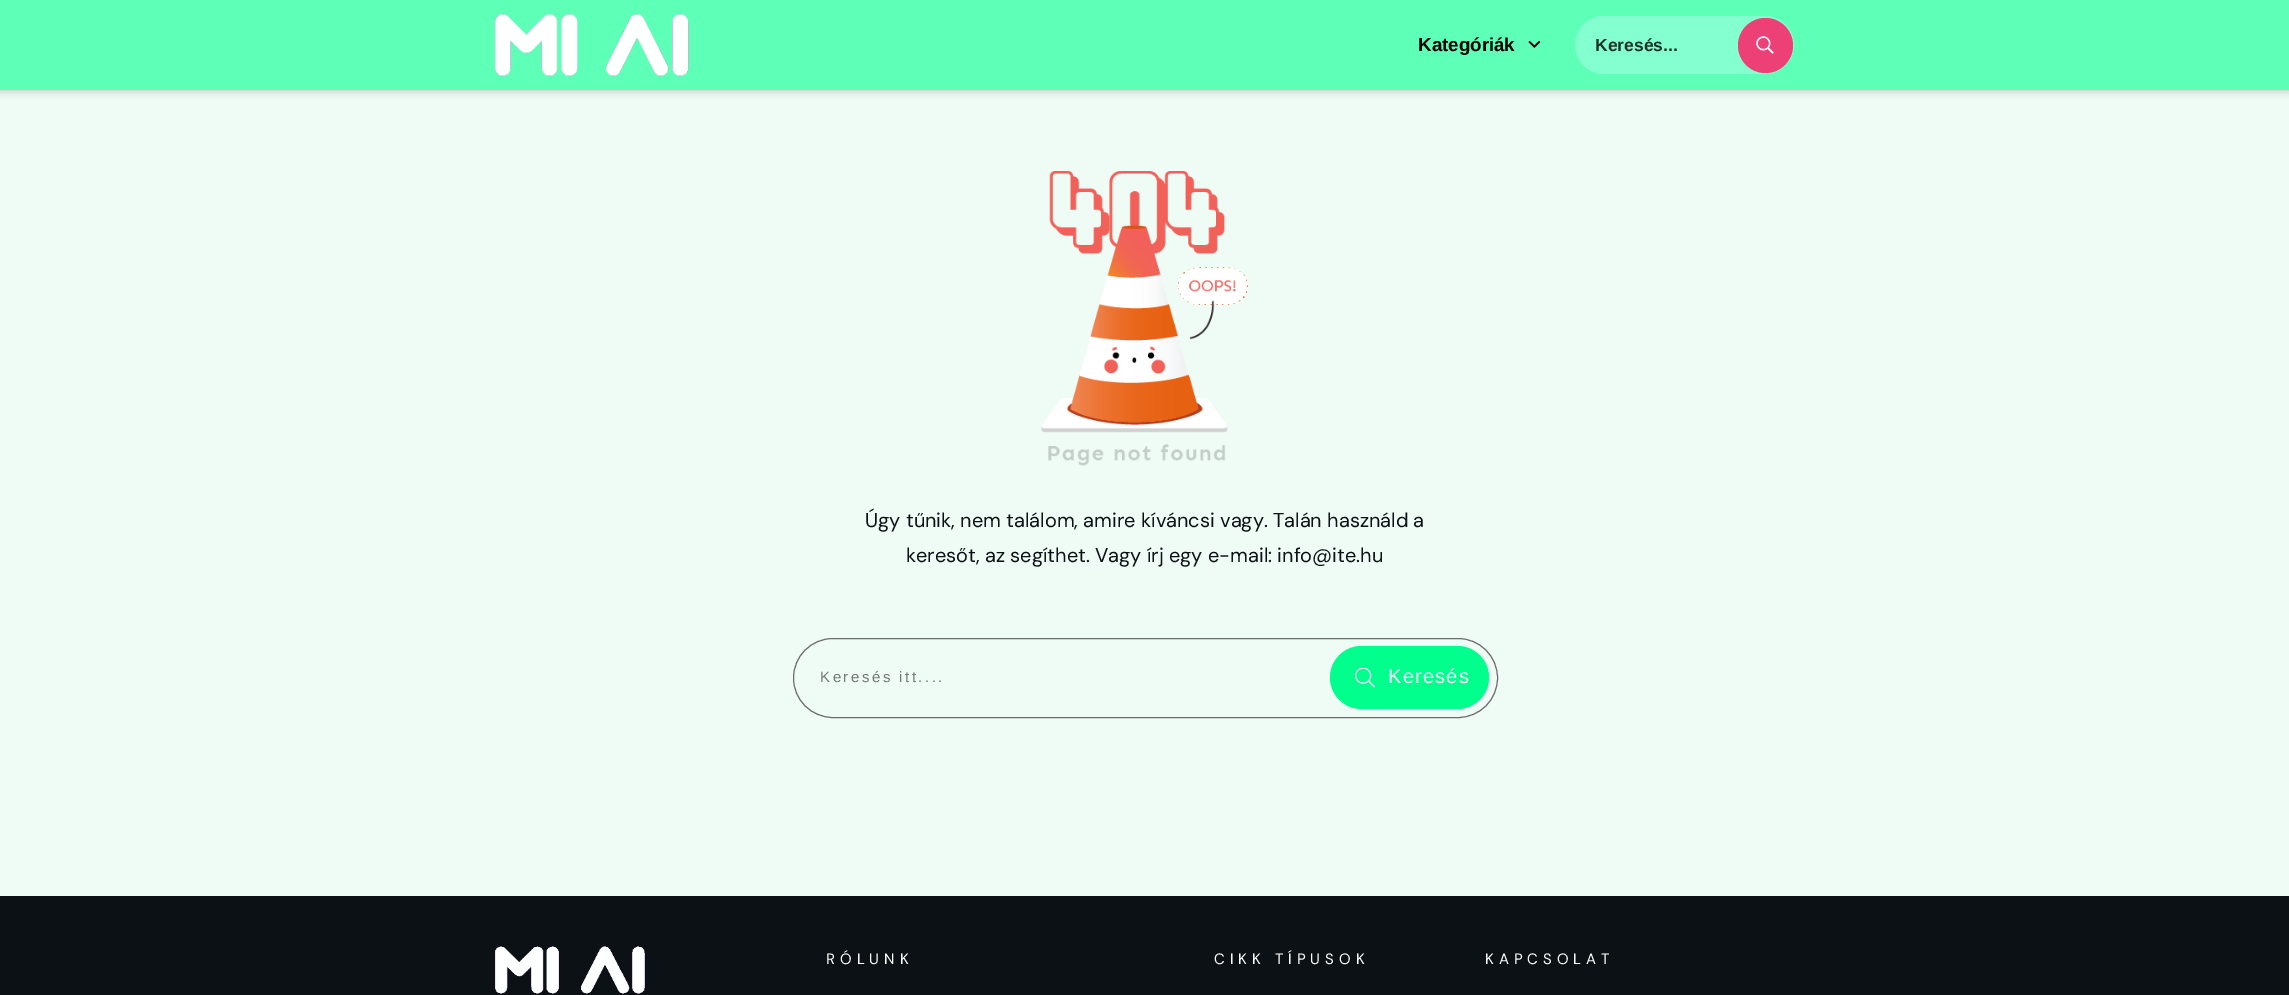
%!PS
<< /PageSize [2289 995] /PageUsesTransparency true >> setpagedevice
/alpha { dup .setfillconstantalpha .setstrokeconstantalpha } def
/roundrect { 5 dict begin { /r /h /w /y /x } { exch def } forall
  x r add y moveto x w add y 2 copy h add r arct x w add y h add x 1 index r arct
  x y h add x y r arct x y 2 copy exch w add exch r arct closepath end } def
/shadow { 12 dict begin { /a /b /q /h /w /y /x } { exch def } forall gsave /was 0 def
  9 -2 -9 { dup b mul 4 div /e exch def 1 sub .425 mul 2.718 exch exp 1 add a .99 .min exch div /now exch def
    1 1 now sub 1 was sub div sub alpha /was now def
    w h .min e 2 mul add 0 gt { x e sub y e sub w e 2 mul add h e 2 mul add
      q e add b .6 mul add w h .min 2 div e add .min 0 .max roundrect fill } if } for grestore end } def
/picture { 5 dict begin { /h /w /y /x /name } { exch def } forall
  gsave x y translate w h scale
  w h 8 [w 0 0 h 0 0] name (r) file false 3 colorimage grestore end } def
0 .pushpdf14devicefilter
0 995 translate 1 -1 scale
4 setmiterlimit
0.937 0.984 0.961 setrgbcolor
0 0 2289 995 rectfill
0 setgray
0 0 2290 90 0 4.5 0.25 shadow
0.369 1 0.718 setrgbcolor
0 0 2289 90 rectfill
(img1.rgb) 495 13 194 64 picture
/LiberationSans-Bold [18.75 0 0 -18.75 0 0] selectfont
0 setgray
1418 51 moveto (Kategóriák) show
(img2.rgb) 1528 40 13 8 picture
0.518 1 0.812 setrgbcolor
1575 16 219 58 29 roundrect fill
/LiberationSans-Bold [17.5 0 0 -17.5 0 0] selectfont
0.102 0.2 0.161 setrgbcolor
1595 51 moveto (Keresés...) show
0.925 0.251 0.467 setrgbcolor
newpath 1765.5 45.5 27.5 0 360 arc closepath fill
(img3.rgb) 1756 36 18 18 picture
(img4.rgb) 1041 171 207 295 picture
/DMSans-Regular [20 0 0 -20 0 0] selectfont
0.047 0.067 0.082 setrgbcolor
865 527 moveto (Úgy tűnik, nem találom, amire kíváncsi vagy. Talán használd a) show
906 562 moveto (keresőt, az segíthet. Vagy írj egy e-mail: info@ite.hu) show
0.424 setgray
793.5 638.5 704 79 39.5 roundrect stroke
/LiberationSans-Regular [15 0 0 -15 0 0] selectfont
0.451 0.471 0.463 setrgbcolor
820 682 moveto 2.5 0 (Keresés itt....) ashow
0 1 0.549 setrgbcolor
1330 646 159 63 31.5 roundrect fill
(img5.rgb) 1355 668 20 20 picture
/LiberationSans-Regular [20 0 0 -20 0 0] selectfont
1 setgray
1388 683 moveto 1.25 0 (Keresés) ashow
0.047 0.067 0.082 setrgbcolor
0 896 2289 99 rectfill
(img6.rgb) 495 946 150 48 picture
/DMSans-Regular [15 0 0 -15 0 0] selectfont
1 setgray
826 964 moveto 5 0 (RÓLUNK) ashow
1214 964 moveto 5 0 (CIKK TÍPUSOK) ashow
1485 964 moveto 5 0 (KAPCSOLAT) ashow
.poppdf14devicefilter showpage
